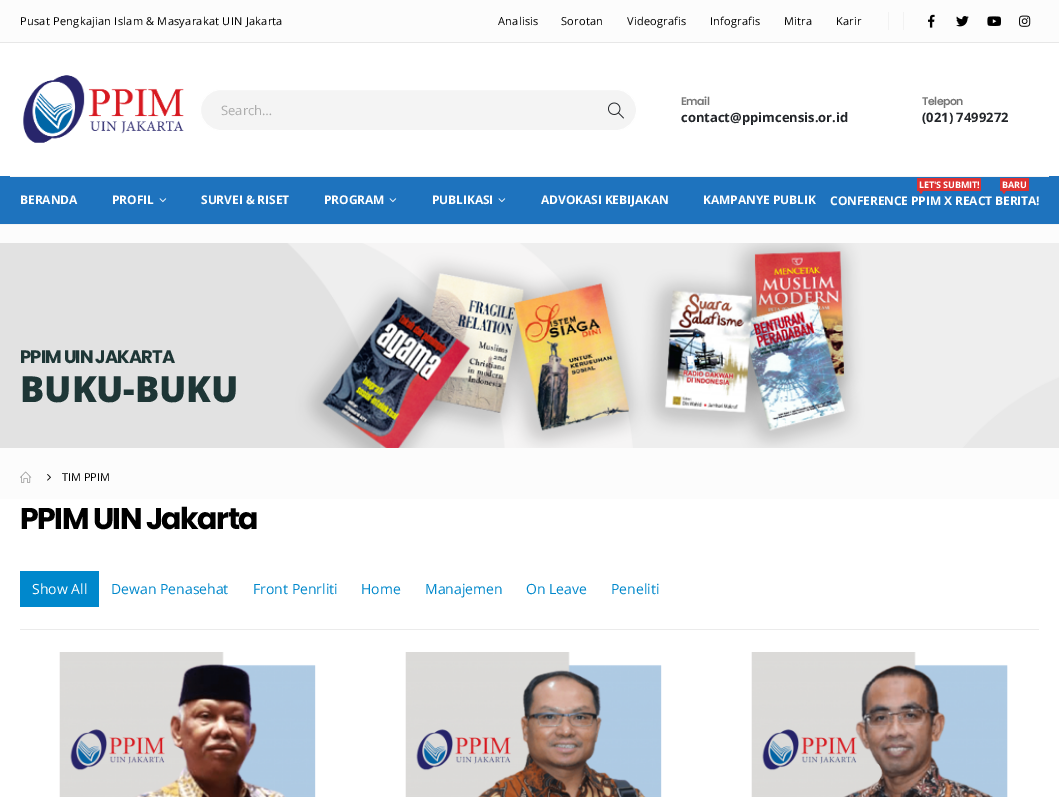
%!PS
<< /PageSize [1059 797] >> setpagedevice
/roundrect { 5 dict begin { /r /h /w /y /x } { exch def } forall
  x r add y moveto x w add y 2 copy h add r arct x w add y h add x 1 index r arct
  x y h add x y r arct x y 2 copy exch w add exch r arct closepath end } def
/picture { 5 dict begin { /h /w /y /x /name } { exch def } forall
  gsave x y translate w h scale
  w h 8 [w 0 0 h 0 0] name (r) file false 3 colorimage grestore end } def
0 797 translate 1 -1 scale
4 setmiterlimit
0.988 setgray
0 0 1059 797 rectfill
0.957 setgray
0 224 1059 1 rectfill
0.906 setgray
0 42 1059 1 rectfill
/OpenSans-Regular [11 0 0 -11 0 0] selectfont
0 setgray
20 25 moveto 0.25 0 (Pusat Pengkajian Islam & Masyarakat UIN Jakarta) ashow
498 25 moveto 0.25 0 (Analisis) ashow
561 25 moveto 0.25 0 (Sorotan) ashow
627 25 moveto 0.25 0 (Videografis) ashow
710 25 moveto 0.25 0 (Infografis) ashow
784 25 moveto 0.25 0 (Mitra) ashow
836 25 moveto 0.25 0 (Karir) ashow
0.949 setgray
888 12 1 18 rectfill
903 12 1 18 rectfill
(img1.rgb) 928 14 7 14 picture
(img2.rgb) 956 16 13 11 picture
(img3.rgb) 987 16 14 10 picture
(img4.rgb) 1019 15 12 12 picture
1 setgray
0 43 1059 133 rectfill
(img5.rgb) 23 75 161 68 picture
0.957 setgray
200.5 89.5 436 41 20.5 roundrect gsave fill grestore
1 setgray
stroke
/OpenSans-Regular [13 0 0 -13 0 0] selectfont
0.675 setgray
221 115 moveto (Search…) show
(img6.rgb) 608 102 16 17 picture
/Poppins-SemiBold [11 0 0 -11 0 0] selectfont
0.467 setgray
681 105 moveto -0.5 0 (Email) ashow
/OpenSans-Bold [13 0 0 -13 0 0] selectfont
0.133 0.145 0.161 setrgbcolor
681 122 moveto (contact@ppimcensis.or.id) show
/Poppins-SemiBold [11 0 0 -11 0 0] selectfont
0.467 setgray
922 105 moveto -0.5 0 (Telepon) ashow
/OpenSans-Bold [13 0 0 -13 0 0] selectfont
0.133 0.145 0.161 setrgbcolor
922 122 moveto (\(021\) 7499272) show
0.118 0.451 0.745 setrgbcolor
0 176 1059 48 rectfill
0.957 setgray
10 176 1039 1 rectfill
/OpenSans-Bold [12 0 0 -12 0 0] selectfont
1 setgray
20 204 moveto -0.1 0 (BERANDA) ashow
112 204 moveto -0.1 0 (PROFIL) ashow
(img7.rgb) 159 198 8 5 picture
201 204 moveto -0.1 0 (SURVEI & RISET) ashow
324 204 moveto -0.1 0 (PROGRAM) ashow
(img7.rgb) 389 198 8 5 picture
432 204 moveto -0.1 0 (PUBLIKASI) ashow
(img7.rgb) 498 198 8 5 picture
541 204 moveto -0.1 0 (ADVOKASI KEBIJAKAN) ashow
703 204 moveto -0.1 0 (KAMPANYE PUBLIK) ashow
0.867 0.2 0.2 setrgbcolor
917 178 64 13 rectfill
/OpenSans-Bold [9 0 0 -9 0 0] selectfont
1 setgray
919 188 moveto -0.1 0 (LET'S SUBMIT!) ashow
0.867 0.2 0.2 setrgbcolor
newpath 919 191 moveto 923 191 lineto 921 194 lineto closepath fill
/OpenSans-Bold [12 0 0 -12 0 0] selectfont
1 setgray
830 205 moveto -0.1 0 (CONFERENCE PPIM X REACT BERITA!) ashow
0.867 0.2 0.2 setrgbcolor
1000 178 29 13 rectfill
/OpenSans-Bold [9 0 0 -9 0 0] selectfont
1 setgray
1002 188 moveto -0.1 0 (BARU) ashow
0.867 0.2 0.2 setrgbcolor
newpath 1002 191 moveto 1006 191 lineto 1004 194 lineto closepath fill
(img8.rgb) 0 243 1059 205 picture
/Poppins-Bold [18 0 0 -18 0 0] selectfont
0.118 0.212 0.212 setrgbcolor
20 363 moveto -0.9 0 (PPIM UIN JAKARTA) ashow
/OpenSans-ExtraBold [36 0 0 -36 0 0] selectfont
20 402 moveto (BUKU-BUKU) show
(img9.rgb) 20 471 12 12 picture
(img10.rgb) 47 474 4 7 picture
/OpenSans-Regular [11 0 0 -11 0 0] selectfont
0 setgray
62 481 moveto (TIM PPIM) show
1 setgray
0 499 1059 298 rectfill
/Poppins-Bold [30 0 0 -30 0 0] selectfont
0 setgray
20 529 moveto -1.5 0 (PPIM UIN Jakarta) ashow
0 0.533 0.8 setrgbcolor
20 571 79 36 rectfill
/OpenSans-Regular [14 0 0 -14 0 0] selectfont
1 setgray
32 594 moveto (Show All) show
0 0.533 0.8 setrgbcolor
111 594 moveto (Dewan Penasehat) show
253 594 moveto (Front Penrliti) show
361 594 moveto (Home) show
425 594 moveto (Manajemen) show
526 594 moveto (On Leave) show
611 594 moveto (Peneliti) show
0.922 setgray
20 629 1019 1 rectfill
(img11.rgb) 59 652 257 145 picture
(img12.rgb) 405 652 257 145 picture
(img13.rgb) 751 652 257 145 picture
showpage
